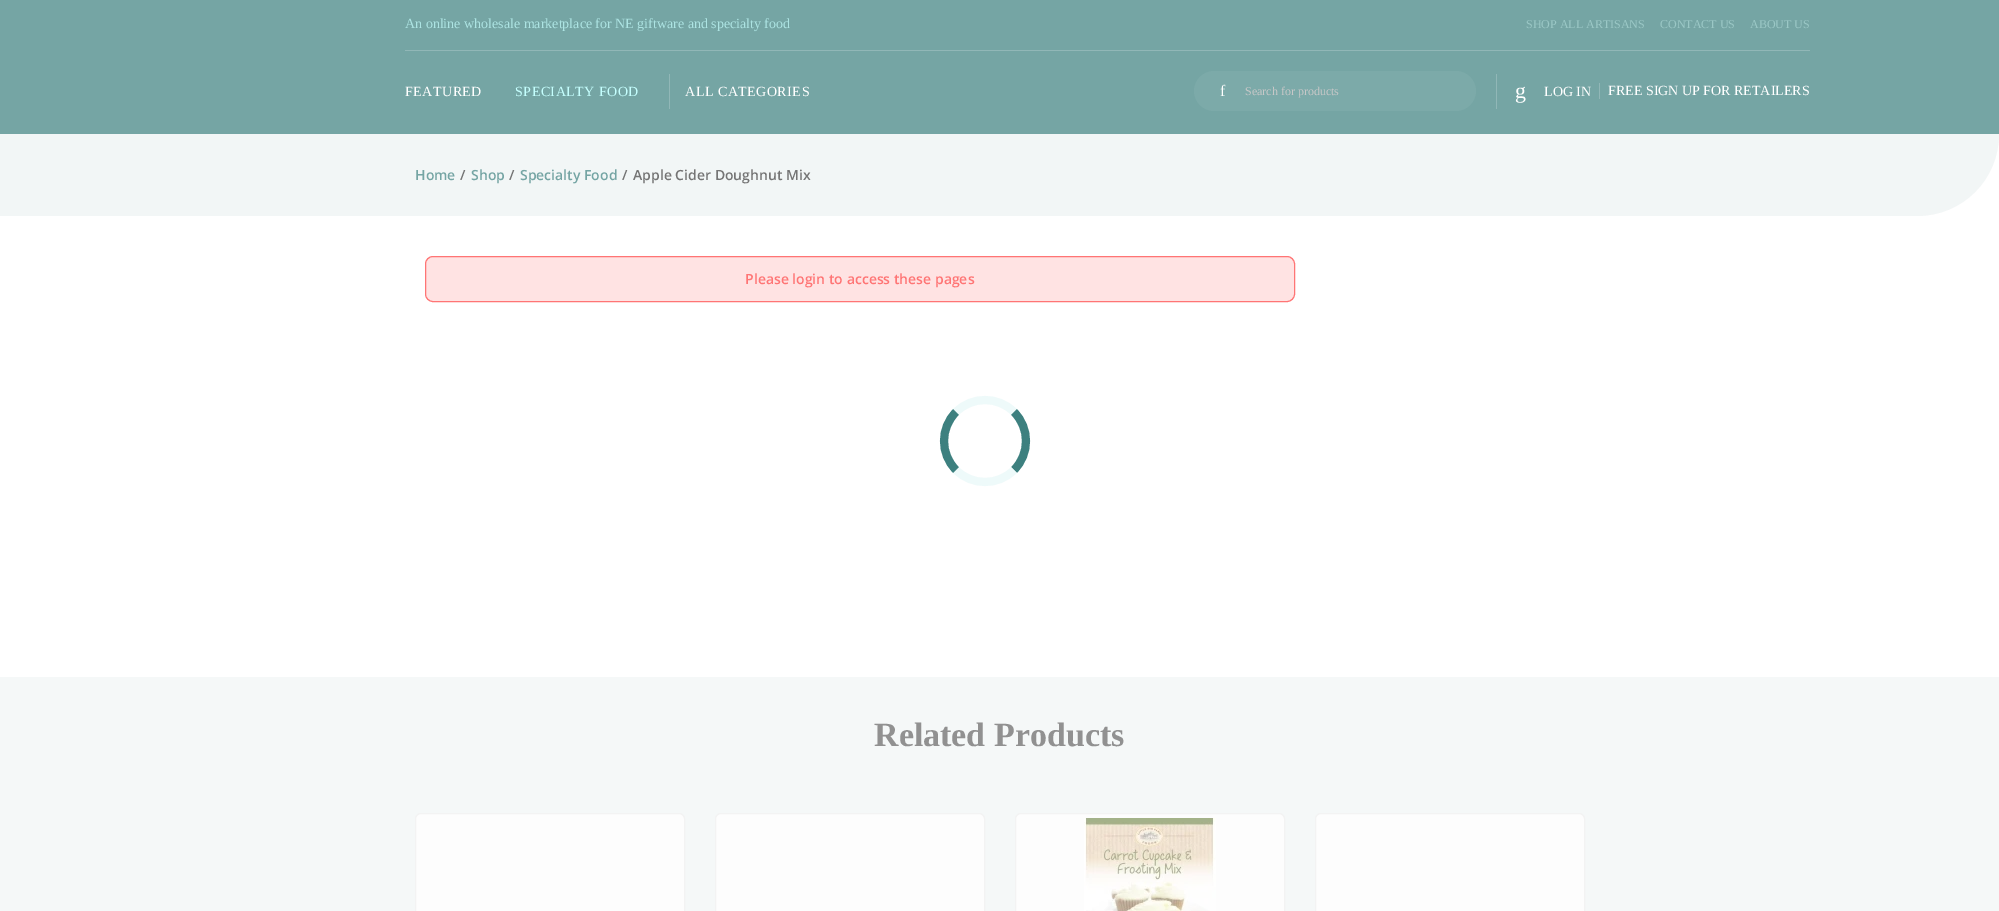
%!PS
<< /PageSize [1999 911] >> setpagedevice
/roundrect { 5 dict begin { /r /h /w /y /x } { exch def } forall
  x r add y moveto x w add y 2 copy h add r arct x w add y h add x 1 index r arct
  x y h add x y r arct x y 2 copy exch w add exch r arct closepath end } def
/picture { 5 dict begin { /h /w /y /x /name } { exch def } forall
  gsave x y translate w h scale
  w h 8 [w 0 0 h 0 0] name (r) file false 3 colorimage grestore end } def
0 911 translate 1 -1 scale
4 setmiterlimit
1 setgray
0 0 1999 911 rectfill
0.459 0.647 0.643 setrgbcolor
0 0 1999 134 rectfill
0.569 0.718 0.718 setrgbcolor
405 50 1405 1 rectfill
/LiberationSerif-Regular [14 0 0 -14 0 0] selectfont
0.678 0.894 0.89 setrgbcolor
405 28 moveto (An online wholesale marketplace for NE giftware and specialty food) show
/LiberationSerif-Regular [12 0 0 -12 0 0] selectfont
0.608 0.784 0.776 setrgbcolor
1526 28 moveto (SHOP ALL ARTISANS) show
1660 28 moveto (CONTACT US) show
1750 28 moveto (ABOUT US) show
/LiberationSerif-Regular [14 0 0 -14 0 0] selectfont
1 setgray
405 96 moveto 0.5 0 (FEATURED) ashow
0.773 1 0.996 setrgbcolor
515 96 moveto 0.5 0 (SPECIALTY FOOD) ashow
0.569 0.718 0.718 setrgbcolor
669 74 1 35 rectfill
1 setgray
685 96 moveto 0.5 0 (ALL CATEGORIES) ashow
0.486 0.667 0.663 setrgbcolor
1194 71 282 40 20 roundrect fill
/LiberationSerif-Regular [16 0 0 -16 0 0] selectfont
1 setgray
1220 96 moveto (f) show
/LiberationSerif-Regular [12 0 0 -12 0 0] selectfont
0.784 setgray
1245 95 moveto (Search for products) show
0.569 0.718 0.718 setrgbcolor
1496 74 1 35 rectfill
/LiberationSerif-Regular [22 0 0 -22 0 0] selectfont
1 setgray
1515 98 moveto (g) show
/LiberationSerif-Regular [14 0 0 -14 0 0] selectfont
1544 96 moveto (LOG IN) show
0.569 0.718 0.718 setrgbcolor
1599 83 1 16 rectfill
1 setgray
1608 95 moveto (FREE SIGN UP FOR RETAILERS) show
0.949 0.965 0.965 setrgbcolor
newpath 0 134 moveto 1999 134 lineto 1999 179.5 1962.5 216 1917 216 curveto 0 216 lineto closepath fill
/OpenSans-SemiBold [14 0 0 -14 0 0] selectfont
0.459 0.647 0.643 setrgbcolor
415 180 moveto (Home) show
0.459 setgray
460 180 moveto (/) show
0.459 0.647 0.643 setrgbcolor
471 180 moveto (Shop) show
0.459 setgray
509 180 moveto (/) show
0.459 0.647 0.643 setrgbcolor
520 180 moveto (Specialty Food) show
0.459 setgray
622 180 moveto (/) show
633 180 moveto (Apple Cider Doughnut Mix) show
1 0.89 0.89 setrgbcolor
425.5 256.5 869 45 7.5 roundrect gsave fill grestore
1 0.459 0.459 setrgbcolor
stroke
745 284 moveto (Please login to access these pages) show
0.961 0.973 0.973 setrgbcolor
0 677 1999 234 rectfill
/LiberationSerif-Bold [34 0 0 -34 0 0] selectfont
0.569 setgray
874 746 moveto (Related Products) show
0.992 setgray
415.5 813.5 269 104 5.5 roundrect gsave fill grestore
0.953 setgray
stroke
0.992 setgray
715.5 813.5 269 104 5.5 roundrect gsave fill grestore
0.953 setgray
stroke
0.992 setgray
1015.5 813.5 269 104 5.5 roundrect gsave fill grestore
0.953 setgray
stroke
(img1.rgb) 1084 818 132 93 picture
0.992 setgray
1315.5 813.5 269 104 5.5 roundrect gsave fill grestore
0.953 setgray
stroke
0.933 0.98 0.98 setrgbcolor
8 setlinewidth
newpath 956 412 moveto 972 396 998 396 1014 412 curveto stroke
0.239 0.502 0.498 setrgbcolor
newpath 1014 412 moveto 1030 428 1030 454 1014 470 curveto stroke
0.933 0.98 0.98 setrgbcolor
newpath 1014 470 moveto 998 486 972 486 956 470 curveto stroke
0.239 0.502 0.498 setrgbcolor
newpath 956 470 moveto 940 454 940 428 956 412 curveto stroke
showpage
